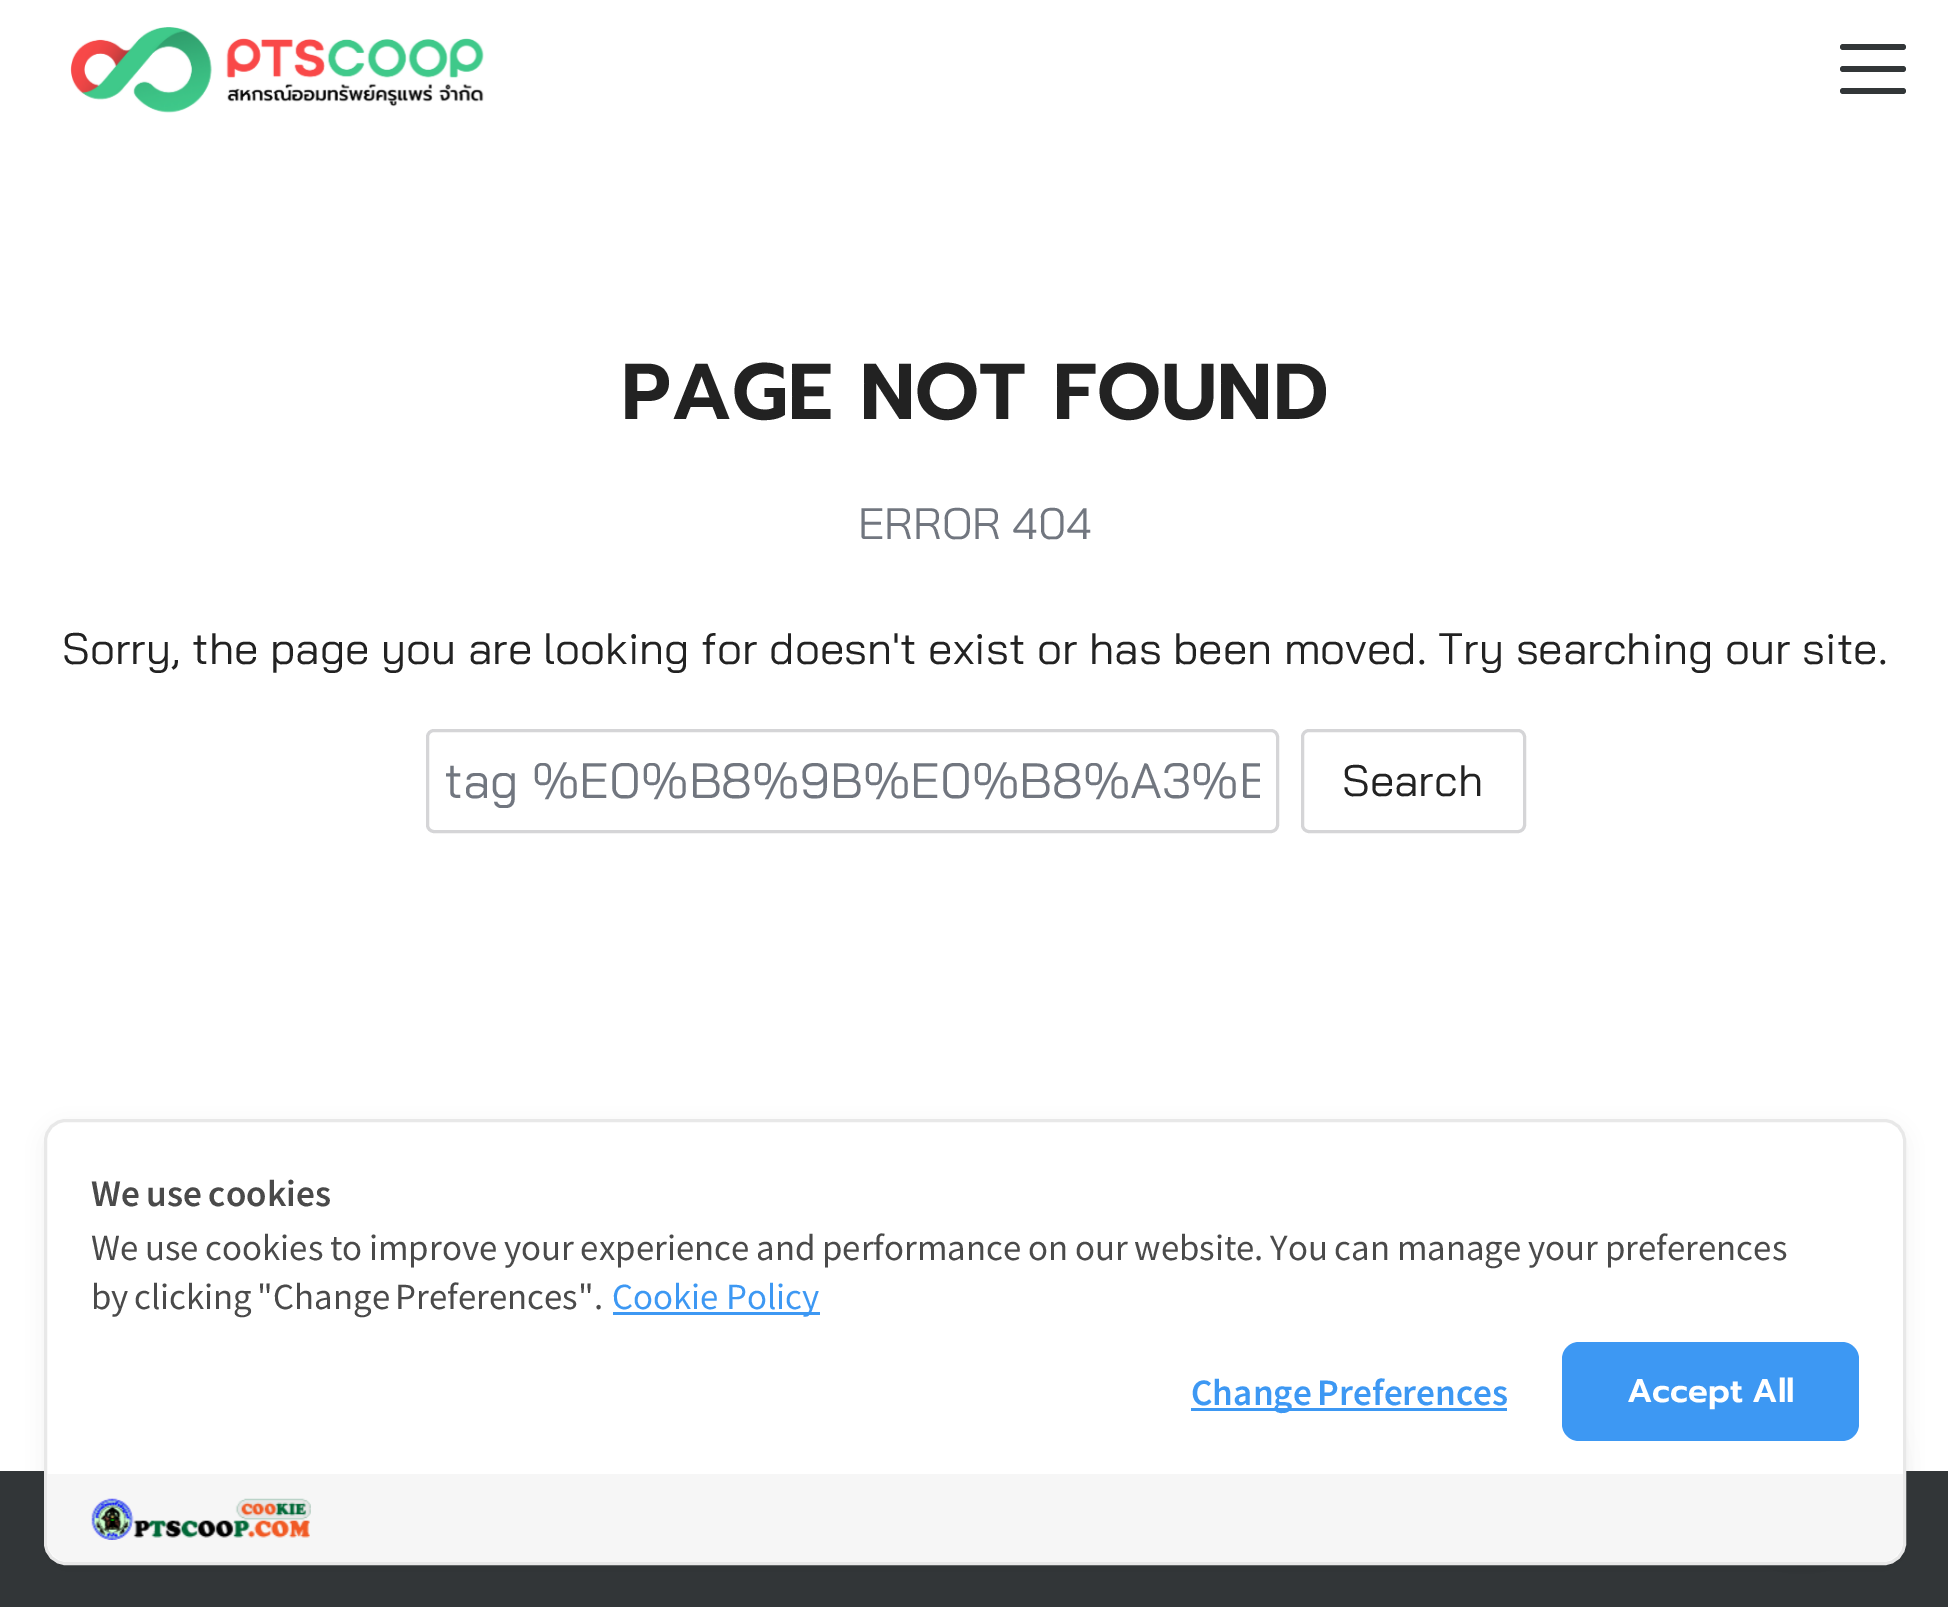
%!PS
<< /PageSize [1948 1607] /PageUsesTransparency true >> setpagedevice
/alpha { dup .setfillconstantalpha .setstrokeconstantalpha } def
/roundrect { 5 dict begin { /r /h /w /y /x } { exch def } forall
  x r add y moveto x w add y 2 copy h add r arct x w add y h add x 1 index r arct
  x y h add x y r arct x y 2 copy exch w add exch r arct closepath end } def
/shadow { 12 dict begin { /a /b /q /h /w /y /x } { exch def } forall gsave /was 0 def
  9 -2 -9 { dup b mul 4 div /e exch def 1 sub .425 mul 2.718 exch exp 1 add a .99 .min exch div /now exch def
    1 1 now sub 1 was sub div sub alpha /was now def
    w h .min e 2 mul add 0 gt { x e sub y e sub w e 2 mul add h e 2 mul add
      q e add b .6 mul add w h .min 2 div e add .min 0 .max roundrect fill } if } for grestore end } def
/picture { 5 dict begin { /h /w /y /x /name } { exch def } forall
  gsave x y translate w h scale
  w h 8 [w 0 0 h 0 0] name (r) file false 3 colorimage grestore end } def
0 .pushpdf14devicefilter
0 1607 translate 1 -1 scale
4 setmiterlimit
1 setgray
0 0 1948 1607 rectfill
(img1.rgb) 70 27 414 86 picture
0.196 0.212 0.22 setrgbcolor
1840 66 66 6 3 roundrect fill
1840 44 66 6 3 roundrect fill
1840 88 66 6 3 roundrect fill
/Prompt-SemiBold [79.25 0 0 -79.25 0 0] selectfont
0.133 setgray
621 419 moveto (PAGE NOT FOUND) show
/BaiJamjuree-Regular [44 0 0 -44 0 0] selectfont
0.443 0.463 0.498 setrgbcolor
858 539 moveto (ERROR 404) show
0.133 setgray
62 664 moveto (Sorry, the page you are looking for doesn't exist or has been moved. Try searching our site.) show
0.835 0.835 0.843 setrgbcolor
3 setlinewidth
427.5 730.5 850 101 6.5 roundrect stroke
gsave
446 748 814 66 rectclip
/BaiJamjuree-Regular [49.5 0 0 -49.5 0 0] selectfont
0.443 0.463 0.498 setrgbcolor
444 798 moveto (tag %E0%B8%9B%E0%B8%A3%E) show
grestore
1302.5 730.5 222 101 6.5 roundrect stroke
0.133 setgray
1342 796 moveto (Search) show
0.196 0.212 0.22 setrgbcolor
0 1471 1948 136 rectfill
0 setgray
44 1125 1862 445 22 11 0.05 shadow
1719 1389 165 165 82.5 16.5 0.15 shadow
1 setgray
45.5 1120.5 1859 443 20.5 roundrect gsave fill grestore
0.91 setgray
stroke
/NotoSansJP-SemiBold [33 0 0 -33 0 0] selectfont
0.29 setgray
91 1206 moveto -1 0 32 (We use cookies) widthshow
/NotoSansJP-Regular [33 0 0 -33 0 0] selectfont
91 1260 moveto -0.75 0 32 (We use cookies to improve your experience and performance on our website. You can manage your preferences) widthshow
91 1309 moveto -2 0 32 (by clicking "Change Preferences".) widthshow
0.239 0.596 0.953 setrgbcolor
613 1312 207 3 rectfill
612 1309 moveto (Cookie Policy) show
1191 1408 316 3 rectfill
/NotoSansJP-SemiBold [33 0 0 -33 0 0] selectfont
1191 1405 moveto -2 0 32 (Change Preferences) widthshow
1562 1342 297 99 17 roundrect fill
/Prompt-SemiBold [33 0 0 -33 0 0] selectfont
1 setgray
1627 1402 moveto -2 0 32 (Accept All) widthshow
0.965 setgray
newpath 47 1474 moveto 1903 1474 lineto 1903 1540 lineto 1903 1552 1893 1562 1881 1562 curveto 69 1562 lineto 57 1562 47 1552 47 1540 curveto closepath fill
(img2.rgb) 91 1498 220 42 picture
.poppdf14devicefilter showpage
